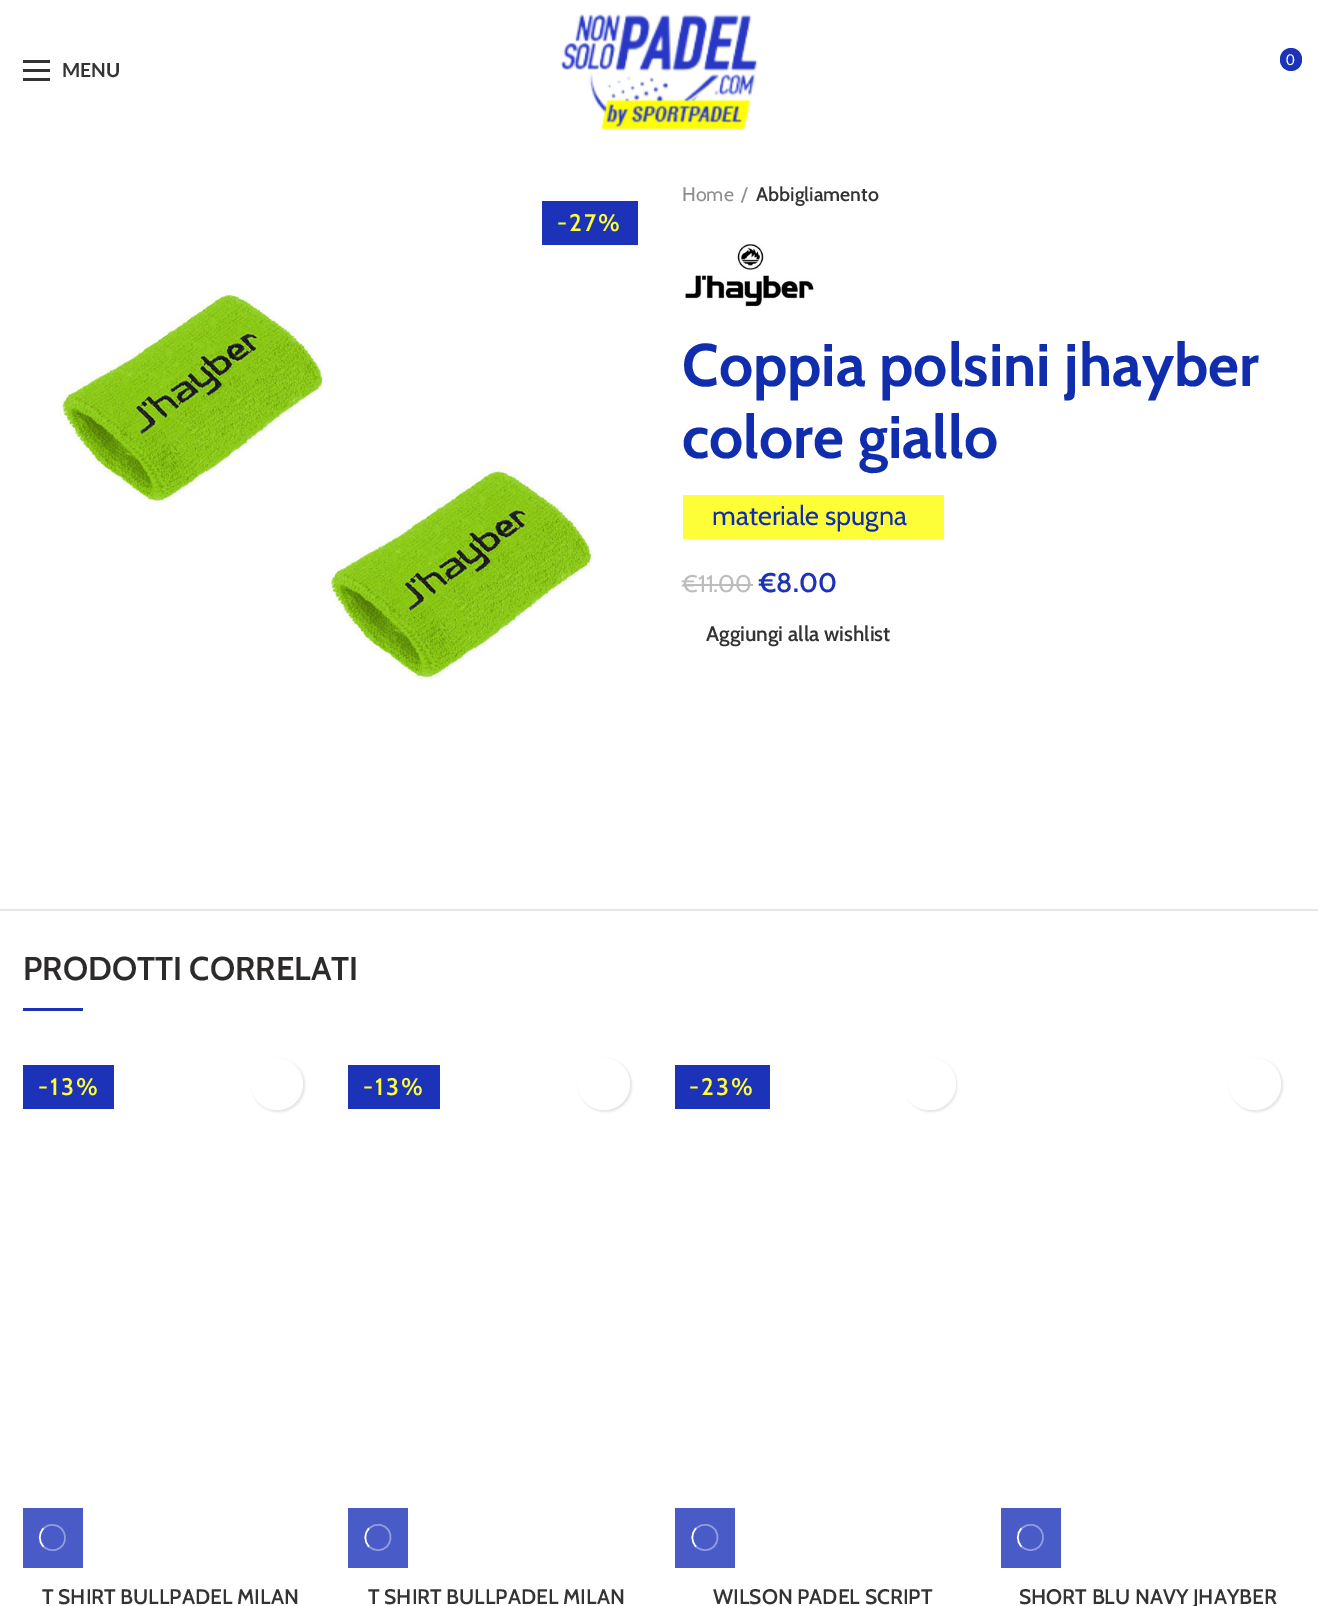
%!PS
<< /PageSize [1318 1606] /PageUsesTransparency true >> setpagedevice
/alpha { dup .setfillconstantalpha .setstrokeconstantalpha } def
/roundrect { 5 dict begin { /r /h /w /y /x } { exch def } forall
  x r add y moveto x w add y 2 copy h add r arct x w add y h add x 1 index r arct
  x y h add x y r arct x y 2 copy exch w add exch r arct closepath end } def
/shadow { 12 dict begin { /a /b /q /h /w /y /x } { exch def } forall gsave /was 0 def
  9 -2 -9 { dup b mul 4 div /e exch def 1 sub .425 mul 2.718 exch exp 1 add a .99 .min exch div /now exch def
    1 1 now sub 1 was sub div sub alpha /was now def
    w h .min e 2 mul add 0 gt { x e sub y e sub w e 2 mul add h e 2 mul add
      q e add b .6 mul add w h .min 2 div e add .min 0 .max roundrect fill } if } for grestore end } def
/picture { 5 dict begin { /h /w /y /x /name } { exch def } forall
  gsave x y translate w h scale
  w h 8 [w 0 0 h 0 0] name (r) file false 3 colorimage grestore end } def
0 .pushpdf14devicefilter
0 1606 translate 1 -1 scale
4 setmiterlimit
1 setgray
0 0 1318 1606 rectfill
(img1.rgb) 560 14 198 116 picture
0.11 0.196 0.725 setrgbcolor
1280 48 22 23 11 roundrect fill
/Lato-Regular [15 0 0 -15 0 0] selectfont
1 setgray
1286 65 moveto (0) show
0.2 setgray
23 69 27 3 rectfill
23 60 27 3 rectfill
23 78 27 3 rectfill
/Lato-Bold [19.5 0 0 -19.5 0 0] selectfont
62 77 moveto (MENU) show
0.11 0.196 0.725 setrgbcolor
542 201 96 44 rectfill
/Cabin-SemiBold [24 0 0 -24 0 0] selectfont
0.992 0.996 0.208 setrgbcolor
557 231 moveto 2 0 (-27%) ashow
(img2.rgb) 59 292 536 388 picture
/Cabin-Regular [19.5 0 0 -19.5 0 0] selectfont
0.557 setgray
682 201 moveto (Home) show
741 201 moveto (/) show
/Cabin-SemiBold [19.5 0 0 -19.5 0 0] selectfont
0.2 setgray
756 201 moveto (Abbigliamento) show
(img3.rgb) 685 243 129 64 picture
/Cabin-Bold [60 0 0 -60 0 0] selectfont
0.059 0.176 0.675 setrgbcolor
682 386 moveto (Coppia polsini jhayber) show
682 458 moveto (colore giallo) show
0.992 0.996 0.216 setrgbcolor
683 495 261 44 rectfill
/Cabin-Regular [27 0 0 -27 0 0] selectfont
0.059 0.176 0.675 setrgbcolor
712 525 moveto (materiale spugna) show
/Cabin-Regular [24 0 0 -24 0 0] selectfont
0.741 setgray
682 592 moveto (€11.00) show
683 584 70 2 rectfill
/Cabin-SemiBold [27 0 0 -27 0 0] selectfont
0.11 0.196 0.725 setrgbcolor
759 592 moveto (€8.00) show
/Cabin-SemiBold [21 0 0 -21 0 0] selectfont
0.2 setgray
706 641 moveto (Aggiungi alla wishlist) show
0.902 setgray
0 909 1318 2 rectfill
/Cabin-SemiBold [33 0 0 -33 0 0] selectfont
0.176 0.165 0.165 setrgbcolor
23 980 moveto (PRODOTTI CORRELATI) show
0.11 0.196 0.725 setrgbcolor
23 1008 60 3 rectfill
23 1065 91 44 rectfill
/Cabin-SemiBold [24 0 0 -24 0 0] selectfont
0.992 0.996 0.208 setrgbcolor
38 1095 moveto 2 0 (-13%) ashow
0 setgray
252 1059 53 53 26.5 1 0.1 shadow
1 setgray
newpath 277 1084 26 0 360 arc closepath fill
0.286 0.357 0.78 setrgbcolor
23 1508 60 60 rectfill
0.573 0.616 0.867 setrgbcolor
1.5 setlinewidth
newpath 43.5 1528.5 moveto 46 1526 49 1524.5 52.5 1525 curveto 67.5 1525 70 1547 55 1550 curveto 51 1551 46.5 1549.5 43.5 1546.5 curveto stroke
1 setgray
newpath 43.5 1546.5 moveto 38.5 1541.5 38.5 1533.5 43.5 1528.5 curveto stroke
/Cabin-SemiBold [21 0 0 -21 0 0] selectfont
0.2 setgray
42 1604 moveto (T SHIRT BULLPADEL MILAN) show
0.11 0.196 0.725 setrgbcolor
348 1065 92 44 rectfill
/Cabin-SemiBold [24 0 0 -24 0 0] selectfont
0.992 0.996 0.208 setrgbcolor
363 1095 moveto 2 0 (-13%) ashow
0 setgray
579 1059 53 53 26.5 1 0.1 shadow
1 setgray
newpath 604 1084 26 0 360 arc closepath fill
0.286 0.357 0.78 setrgbcolor
348 1508 60 60 rectfill
0.573 0.616 0.867 setrgbcolor
newpath 369 1528.5 moveto 372 1525.5 376.5 1524 380.5 1525 curveto 395.5 1528 393 1550.5 378 1550 curveto 374.5 1550 371.5 1549 369 1546.5 curveto stroke
1 setgray
newpath 369 1546.5 moveto 364 1541.5 364 1533.5 369 1528.5 curveto stroke
/Cabin-SemiBold [21 0 0 -21 0 0] selectfont
0.2 setgray
368 1604 moveto (T SHIRT BULLPADEL MILAN) show
0.11 0.196 0.725 setrgbcolor
675 1065 95 44 rectfill
/Cabin-SemiBold [24 0 0 -24 0 0] selectfont
0.992 0.996 0.208 setrgbcolor
689 1095 moveto 2 0 (-23%) ashow
0 setgray
905 1059 52 53 26 1 0.1 shadow
1 setgray
903 1058 53 52 26 roundrect fill
0.286 0.357 0.78 setrgbcolor
675 1508 60 60 rectfill
0.573 0.616 0.867 setrgbcolor
newpath 696 1528.5 moveto 699 1525.5 703.5 1524 707.5 1525 curveto 722.5 1528 720 1550.5 705 1550 curveto 701.5 1550 698.5 1549 696 1546.5 curveto stroke
1 setgray
newpath 696 1546.5 moveto 691 1541.5 691 1533.5 696 1528.5 curveto stroke
/Cabin-SemiBold [21 0 0 -21 0 0] selectfont
0.2 setgray
713 1604 moveto (WILSON PADEL SCRIPT) show
0 setgray
1230 1059 53 53 26.5 1 0.1 shadow
1 setgray
newpath 1255 1084 26 0 360 arc closepath fill
0.286 0.357 0.78 setrgbcolor
1001 1508 60 60 rectfill
0.573 0.616 0.867 setrgbcolor
newpath 1021.5 1528.5 moveto 1024.5 1525.5 1029 1524 1033 1525 curveto 1048 1528 1045.5 1550.5 1030.5 1550 curveto 1027 1550 1024 1549 1021.5 1546.5 curveto stroke
1 setgray
newpath 1021.5 1546.5 moveto 1016.5 1541.5 1016.5 1533.5 1021.5 1528.5 curveto stroke
0.2 setgray
1019 1604 moveto (SHORT BLU NAVY JHAYBER) show
.poppdf14devicefilter showpage
